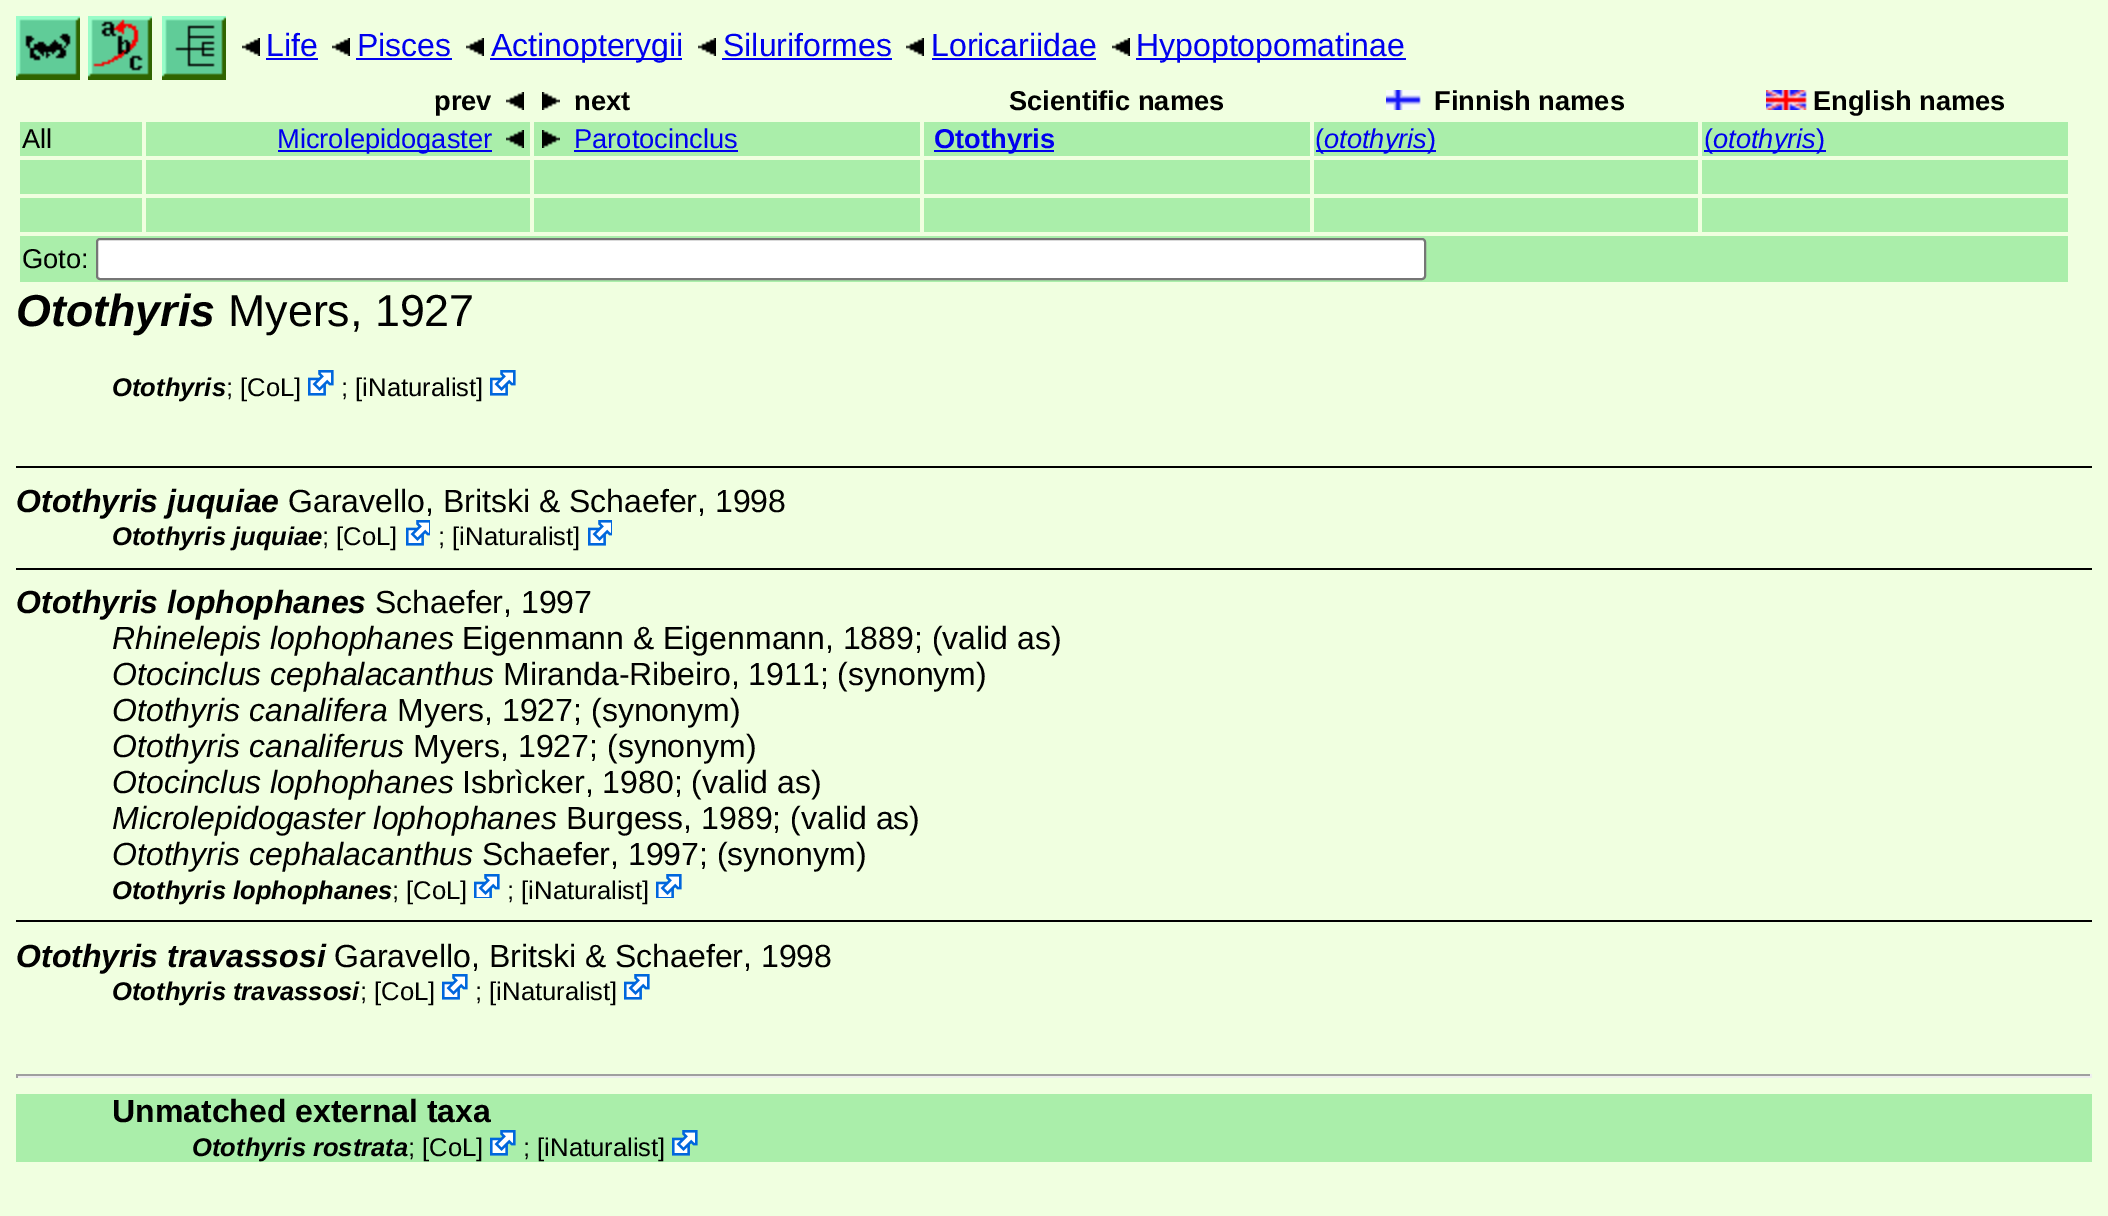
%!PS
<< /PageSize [2108 1216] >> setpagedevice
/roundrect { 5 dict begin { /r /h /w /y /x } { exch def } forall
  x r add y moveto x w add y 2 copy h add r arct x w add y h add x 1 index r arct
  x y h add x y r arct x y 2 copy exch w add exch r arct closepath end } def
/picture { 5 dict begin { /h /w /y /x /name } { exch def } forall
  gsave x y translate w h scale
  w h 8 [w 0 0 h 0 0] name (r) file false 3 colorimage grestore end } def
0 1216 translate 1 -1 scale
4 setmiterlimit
0.941 1 0.878 setrgbcolor
0 0 2108 1216 rectfill
(img1.rgb) 16 16 64 64 picture
(img2.rgb) 88 16 64 64 picture
(img3.rgb) 162 16 64 64 picture
(img4.rgb) 242 38 18 18 picture
/LiberationSans-Regular [32 0 0 -32 0 0] selectfont
0 0 0.933 setrgbcolor
266 56 moveto (Life) show
266 58 52 2 rectfill
(img4.rgb) 332 38 18 18 picture
357 56 moveto (Pisces) show
356 58 96 2 rectfill
(img4.rgb) 466 38 18 18 picture
490 58 192 2 rectfill
491 56 moveto (Actinopterygii) show
(img4.rgb) 698 38 18 18 picture
723 56 moveto (Siluriformes) show
722 58 170 2 rectfill
(img4.rgb) 906 38 18 18 picture
931 56 moveto (Loricariidae) show
932 58 164 2 rectfill
(img4.rgb) 1112 38 18 18 picture
1136 58 270 2 rectfill
1136 56 moveto (Hypoptopomatinae) show
/LiberationSans-Bold [27.25 0 0 -27.25 0 0] selectfont
0 setgray
434 110 moveto (prev) show
(img4.rgb) 506 92 18 18 picture
(img5.rgb) 542 92 18 18 picture
574 110 moveto (next) show
1009 110 moveto (Scientific names) show
(img6.rgb) 1386 90 35 20 picture
1434 110 moveto (Finnish names) show
(img7.rgb) 1766 90 41 20 picture
1813 110 moveto (English names) show
0.667 0.933 0.667 setrgbcolor
20 122 122 34 rectfill
/LiberationSans-Regular [27.25 0 0 -27.25 0 0] selectfont
0 setgray
22 148 moveto (All) show
0.667 0.933 0.667 setrgbcolor
146 122 384 34 rectfill
0 0 0.933 setrgbcolor
278 150 214 2 rectfill
277 148 moveto (Microlepidogaster) show
(img8.rgb) 506 130 18 18 picture
0.667 0.933 0.667 setrgbcolor
534 122 386 34 rectfill
(img9.rgb) 542 130 18 18 picture
0 0 0.933 setrgbcolor
574 148 moveto (Parotocinclus) show
574 150 164 2 rectfill
0.667 0.933 0.667 setrgbcolor
924 122 386 34 rectfill
0 0 0.933 setrgbcolor
934 150 120 2 rectfill
/LiberationSans-Bold [27.25 0 0 -27.25 0 0] selectfont
934 148 moveto (Otothyris) show
0.667 0.933 0.667 setrgbcolor
1314 122 384 34 rectfill
0 0 0.933 setrgbcolor
1316 150 110 2 rectfill
/LiberationSans-Regular [27.25 0 0 -27.25 0 0] selectfont
1315 148 moveto (\() show
/LiberationSans-Italic [27.25 0 0 -27.25 0 0] selectfont
1324 148 moveto (otothyris) show
1426 150 10 2 rectfill
/LiberationSans-Regular [27.25 0 0 -27.25 0 0] selectfont
1427 148 moveto (\)) show
0.667 0.933 0.667 setrgbcolor
1702 122 366 34 rectfill
0 0 0.933 setrgbcolor
1704 150 122 2 rectfill
1704 148 moveto (\() show
/LiberationSans-Italic [27.25 0 0 -27.25 0 0] selectfont
1713 148 moveto (otothyris) show
/LiberationSans-Regular [27.25 0 0 -27.25 0 0] selectfont
1816 148 moveto (\)) show
0.667 0.933 0.667 setrgbcolor
20 160 122 34 rectfill
146 160 384 34 rectfill
534 160 386 34 rectfill
924 160 386 34 rectfill
1314 160 384 34 rectfill
1702 160 366 34 rectfill
20 198 122 34 rectfill
146 198 384 34 rectfill
534 198 386 34 rectfill
924 198 386 34 rectfill
1314 198 384 34 rectfill
1702 198 366 34 rectfill
20 236 2048 46 rectfill
0 setgray
22 268 moveto (Goto:) show
1 setgray
97 239 1328 40 3 roundrect gsave fill grestore
0.463 setgray
2 setlinewidth
stroke
/LiberationSans-BoldItalic [44.75 0 0 -44.75 0 0] selectfont
0 setgray
16 326 moveto (Otothyris) show
/LiberationSans-Regular [44.75 0 0 -44.75 0 0] selectfont
228 326 moveto (Myers, 1927) show
/LiberationSans-BoldItalic [25.6 0 0 -25.6 0 0] selectfont
112 396 moveto (Otothyris) show
/LiberationSans-Regular [25.6 0 0 -25.6 0 0] selectfont
226 396 moveto (; [CoL]) show
(img10.rgb) 308 370 26 26 picture
341 396 moveto (; [iNaturalist]) show
(img10.rgb) 490 370 26 26 picture
16 466 2076 2 rectfill
/LiberationSans-BoldItalic [32 0 0 -32 0 0] selectfont
16 512 moveto (Otothyris juquiae) show
/LiberationSans-Regular [32 0 0 -32 0 0] selectfont
288 512 moveto (Garavello, Britski & Schaefer, 1998) show
/LiberationSans-BoldItalic [25.6 0 0 -25.6 0 0] selectfont
112 545 moveto (Otothyris juquiae) show
/LiberationSans-Regular [25.6 0 0 -25.6 0 0] selectfont
322 545 moveto (; [CoL]) show
(img11.rgb) 406 520 24 26 picture
438 545 moveto (; [iNaturalist]) show
(img11.rgb) 588 520 24 26 picture
16 568 2076 2 rectfill
/LiberationSans-BoldItalic [32 0 0 -32 0 0] selectfont
16 613 moveto (Otothyris lophophanes) show
/LiberationSans-Regular [32 0 0 -32 0 0] selectfont
375 613 moveto (Schaefer, 1997) show
/LiberationSans-Italic [32 0 0 -32 0 0] selectfont
112 649 moveto (Rhinelepis lophophanes) show
/LiberationSans-Regular [32 0 0 -32 0 0] selectfont
462 649 moveto (Eigenmann & Eigenmann, 1889; \(valid as\)) show
/LiberationSans-Italic [32 0 0 -32 0 0] selectfont
112 685 moveto (Otocinclus cephalacanthus) show
/LiberationSans-Regular [32 0 0 -32 0 0] selectfont
503 685 moveto (Miranda-Ribeiro, 1911; \(synonym\)) show
/LiberationSans-Italic [32 0 0 -32 0 0] selectfont
112 721 moveto (Otothyris canalifera) show
/LiberationSans-Regular [32 0 0 -32 0 0] selectfont
397 721 moveto (Myers, 1927; \(synonym\)) show
/LiberationSans-Italic [32 0 0 -32 0 0] selectfont
112 757 moveto (Otothyris canaliferus) show
/LiberationSans-Regular [32 0 0 -32 0 0] selectfont
413 757 moveto (Myers, 1927; \(synonym\)) show
/LiberationSans-Italic [32 0 0 -32 0 0] selectfont
112 793 moveto (Otocinclus lophophanes) show
/LiberationSans-Regular [32 0 0 -32 0 0] selectfont
462 793 moveto (Isbrìcker, 1980; \(valid as\)) show
/LiberationSans-Italic [32 0 0 -32 0 0] selectfont
112 829 moveto (Microlepidogaster lophophanes) show
/LiberationSans-Regular [32 0 0 -32 0 0] selectfont
566 829 moveto (Burgess, 1989; \(valid as\)) show
/LiberationSans-Italic [32 0 0 -32 0 0] selectfont
112 865 moveto (Otothyris cephalacanthus) show
/LiberationSans-Regular [32 0 0 -32 0 0] selectfont
482 865 moveto (Schaefer, 1997; \(synonym\)) show
/LiberationSans-BoldItalic [25.6 0 0 -25.6 0 0] selectfont
112 899 moveto (Otothyris lophophanes) show
/LiberationSans-Regular [25.6 0 0 -25.6 0 0] selectfont
392 899 moveto (; [CoL]) show
(img12.rgb) 474 874 26 24 picture
507 899 moveto (; [iNaturalist]) show
(img12.rgb) 656 874 26 24 picture
16 920 2076 2 rectfill
/LiberationSans-BoldItalic [32 0 0 -32 0 0] selectfont
16 967 moveto (Otothyris travassosi) show
/LiberationSans-Regular [32 0 0 -32 0 0] selectfont
334 967 moveto (Garavello, Britski & Schaefer, 1998) show
/LiberationSans-BoldItalic [25.6 0 0 -25.6 0 0] selectfont
112 1000 moveto (Otothyris travassosi) show
/LiberationSans-Regular [25.6 0 0 -25.6 0 0] selectfont
360 1000 moveto (; [CoL]) show
(img10.rgb) 442 974 26 26 picture
475 1000 moveto (; [iNaturalist]) show
(img10.rgb) 624 974 26 26 picture
0.624 setgray
16 1074 2076 2 rectfill
0.933 setgray
2090 1074 2 4 rectfill
16 1076 2076 2 rectfill
0.624 setgray
16 1074 2 4 rectfill
0.667 0.933 0.667 setrgbcolor
16 1094 2076 68 rectfill
/LiberationSans-Bold [32 0 0 -32 0 0] selectfont
0 setgray
112 1122 moveto (Unmatched external taxa) show
/LiberationSans-BoldItalic [25.6 0 0 -25.6 0 0] selectfont
192 1156 moveto (Otothyris rostrata) show
/LiberationSans-Regular [25.6 0 0 -25.6 0 0] selectfont
408 1156 moveto (; [CoL]) show
(img13.rgb) 490 1130 26 26 picture
523 1156 moveto (; [iNaturalist]) show
(img13.rgb) 672 1130 26 26 picture
showpage
